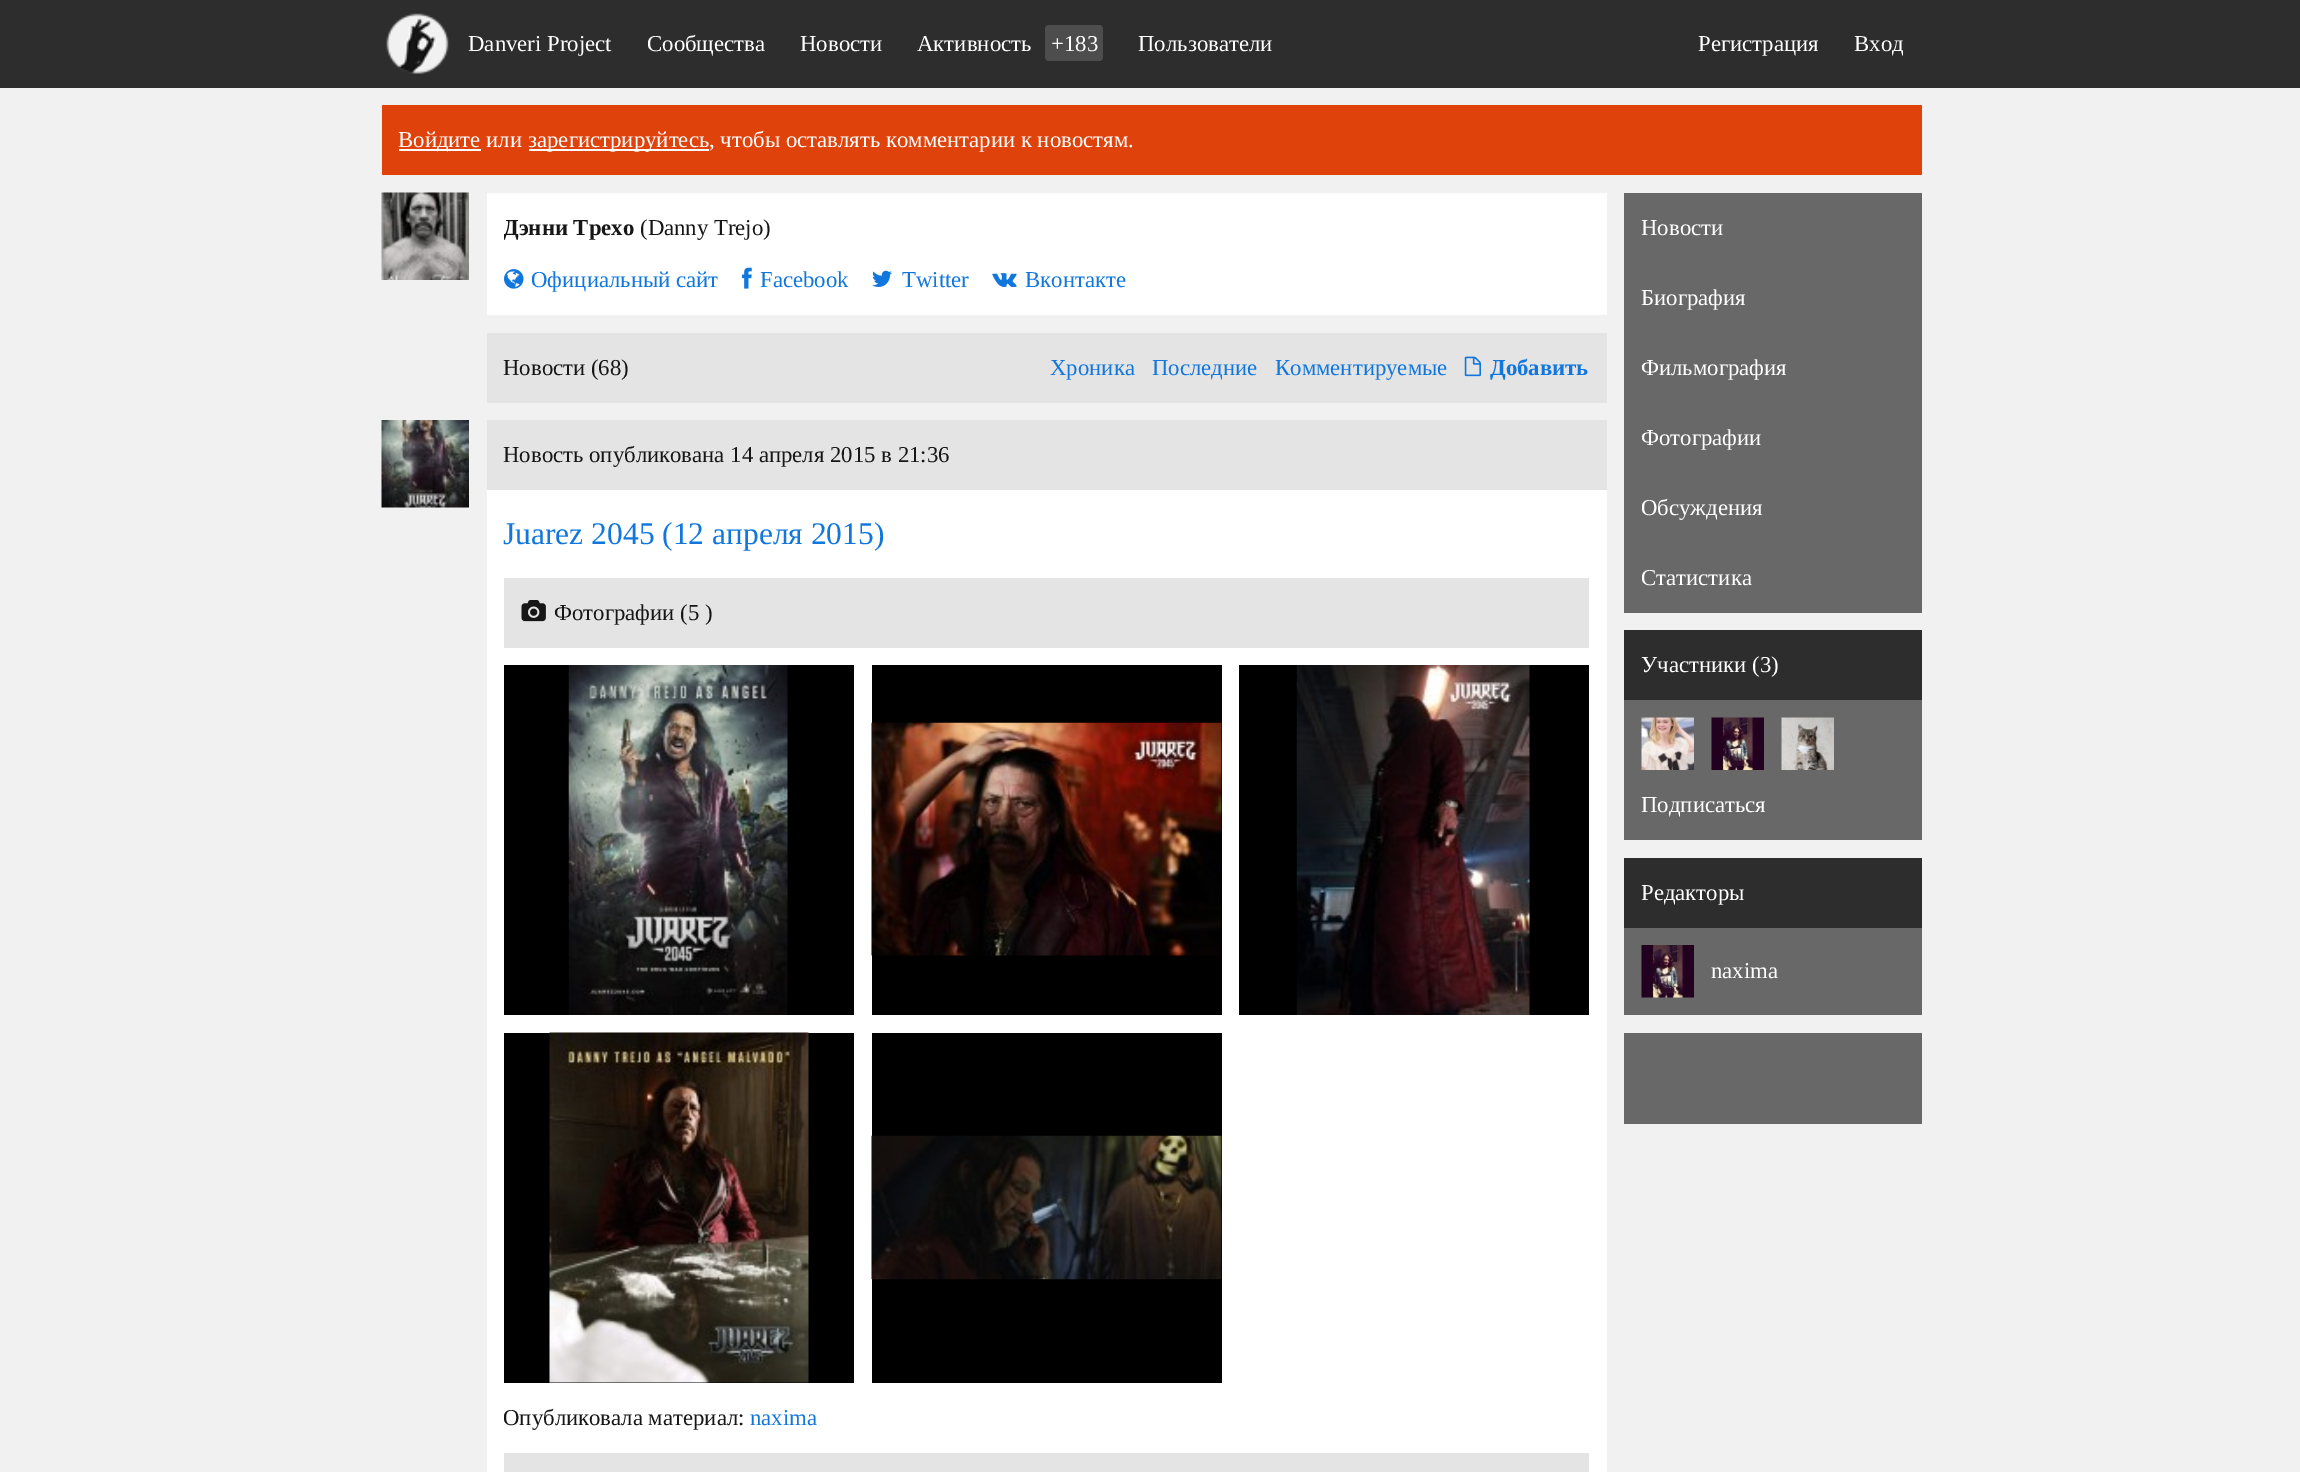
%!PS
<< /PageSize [2300 1472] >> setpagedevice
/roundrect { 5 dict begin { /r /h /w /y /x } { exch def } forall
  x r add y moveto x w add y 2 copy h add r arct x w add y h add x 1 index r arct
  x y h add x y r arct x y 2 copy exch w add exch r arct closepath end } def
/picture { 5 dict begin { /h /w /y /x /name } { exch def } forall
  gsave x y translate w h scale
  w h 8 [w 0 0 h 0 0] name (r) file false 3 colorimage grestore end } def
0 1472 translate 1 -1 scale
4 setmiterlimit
0.945 setgray
0 0 2300 1472 rectfill
0.176 setgray
0 0 2300 88 rectfill
(img1.rgb) 386 13 63 61 picture
/LiberationSerif-Regular [22.75 0 0 -22.75 0 0] selectfont
1 setgray
468 51 moveto (Danveri Project) show
647 51 moveto (Сообщества) show
800 51 moveto (Новости) show
917 51 moveto (Активность) show
0.302 setgray
1045 25 58 36 4 roundrect fill
1 setgray
1051 51 moveto (+183) show
1138 51 moveto (Пользователи) show
1698 51 moveto (Регистрация) show
1854 51 moveto (Вход) show
0.875 0.259 0.043 setrgbcolor
382 105 1540 70 rectfill
1 setgray
399 149 82 2 rectfill
398 147 moveto (Войдите или) show
529 149 180 2 rectfill
528 147 moveto (зарегистрируйтесь, чтобы оставлять комментарии к новостям.) show
(img2.rgb) 381 192 88 88 picture
487 193 1120 122 rectfill
gsave
504 210 1085 35 rectclip
/LiberationSerif-Bold [22.75 0 0 -22.75 0 0] selectfont
0.086 setgray
503 235 moveto (Дэнни Трехо) show
grestore
0.086 setgray
640 235 moveto (\(Danny Trejo\)) show
(img3.rgb) 504 269 20 20 picture
0.067 0.467 0.867 setrgbcolor
531 287 moveto (Официальный сайт) show
(img4.rgb) 742 267 10 22 picture
760 287 moveto (Facebook) show
(img5.rgb) 872 270 20 17 picture
902 287 moveto (Twitter) show
(img6.rgb) 992 273 25 14 picture
1025 287 moveto (Вконтакте) show
0.894 setgray
487 333 1120 70 rectfill
0.086 setgray
503 375 moveto (Новости \(68\)) show
0.067 0.467 0.867 setrgbcolor
1050 375 moveto (Хроника) show
1152 375 moveto (Последние) show
1275 375 moveto (Комментируемые) show
(img7.rgb) 1464 356 17 21 picture
/LiberationSerif-Bold [22.75 0 0 -22.75 0 0] selectfont
1490 375 moveto (Добавить) show
(img8.rgb) 381 420 88 88 picture
0.894 setgray
487 420 1120 70 rectfill
/LiberationSerif-Regular [22.75 0 0 -22.75 0 0] selectfont
0.086 setgray
503 462 moveto (Новость опубликована 14 апреля 2015 в 21:36) show
1 setgray
487 490 1120 982 rectfill
/LiberationSerif-Regular [31.5 0 0 -31.5 0 0] selectfont
0.067 0.467 0.867 setrgbcolor
503 544 moveto (Juarez 2045 \(12 апреля 2015\)) show
0.894 setgray
504 578 1085 70 rectfill
(img9.rgb) 521 600 25 22 picture
/LiberationSerif-Regular [22.75 0 0 -22.75 0 0] selectfont
0.086 setgray
554 620 moveto (Фотографии \(5 \)) show
0 setgray
504 665 350 350 rectfill
(img10.rgb) 568 665 220 350 picture
872 665 350 350 rectfill
(img11.rgb) 871 722 351 234 picture
1239 665 350 350 rectfill
(img12.rgb) 1296 665 234 350 picture
504 1033 350 350 rectfill
(img13.rgb) 549 1032 260 351 picture
872 1033 350 350 rectfill
(img14.rgb) 871 1135 351 145 picture
0.086 setgray
503 1425 moveto (Опубликовала материал:) show
0.067 0.467 0.867 setrgbcolor
750 1425 moveto (naxima) show
0.894 setgray
504 1453 1085 19 rectfill
0.408 setgray
1624 193 298 420 rectfill
1 setgray
1641 235 moveto (Новости) show
1641 305 moveto (Биография) show
1641 375 moveto (Фильмография) show
1641 445 moveto (Фотографии) show
1641 515 moveto (Обсуждения) show
1641 585 moveto (Статистика) show
0.176 setgray
1624 630 298 70 rectfill
1 setgray
1641 672 moveto (Участники \(3\)) show
0.408 setgray
1624 700 298 140 rectfill
(img15.rgb) 1641 717 53 53 picture
(img16.rgb) 1711 717 53 53 picture
(img17.rgb) 1781 717 53 53 picture
1 setgray
1641 812 moveto (Подписаться) show
0.176 setgray
1624 858 298 70 rectfill
1 setgray
1641 900 moveto (Редакторы) show
0.408 setgray
1624 928 298 87 rectfill
(img18.rgb) 1641 945 53 53 picture
1 setgray
1711 978 moveto (naxima) show
0.408 setgray
1624 1033 298 91 rectfill
showpage
